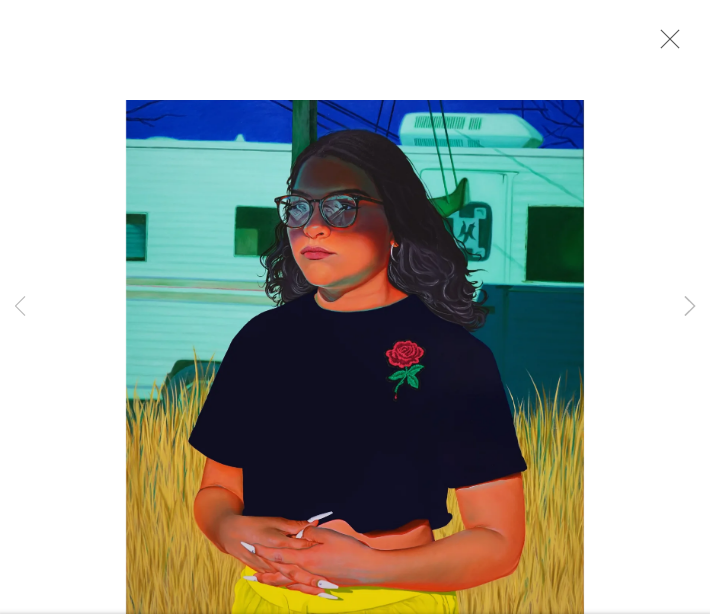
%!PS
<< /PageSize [710 614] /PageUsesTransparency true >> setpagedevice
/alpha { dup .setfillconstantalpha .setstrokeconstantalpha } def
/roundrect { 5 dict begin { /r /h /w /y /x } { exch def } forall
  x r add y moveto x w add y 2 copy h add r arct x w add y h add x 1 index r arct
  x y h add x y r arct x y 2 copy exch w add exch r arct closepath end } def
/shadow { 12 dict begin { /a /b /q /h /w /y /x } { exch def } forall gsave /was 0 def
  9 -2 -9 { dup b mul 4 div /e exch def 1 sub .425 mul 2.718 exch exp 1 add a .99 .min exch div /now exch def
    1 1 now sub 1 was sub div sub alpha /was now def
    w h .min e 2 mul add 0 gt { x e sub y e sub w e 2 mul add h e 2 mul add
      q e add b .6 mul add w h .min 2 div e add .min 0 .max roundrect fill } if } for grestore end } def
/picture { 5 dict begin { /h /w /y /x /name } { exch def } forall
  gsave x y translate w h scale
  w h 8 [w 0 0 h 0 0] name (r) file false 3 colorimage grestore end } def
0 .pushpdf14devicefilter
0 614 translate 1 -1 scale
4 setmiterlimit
1 setgray
0 0 710 614 rectfill
(img1.rgb) 660 29 20 20 picture
(img2.rgb) 125 100 460 514 picture
(img3.rgb) 15 296 11 20 picture
0.725 setgray
newpath 695.5 306 moveto 685.5 296 lineto 684.5 297 lineto 694 306 lineto 684.5 315 lineto 685.5 316 lineto closepath fill
0 setgray
0 614 710 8 0 2.5 0.23 shadow
.poppdf14devicefilter showpage
